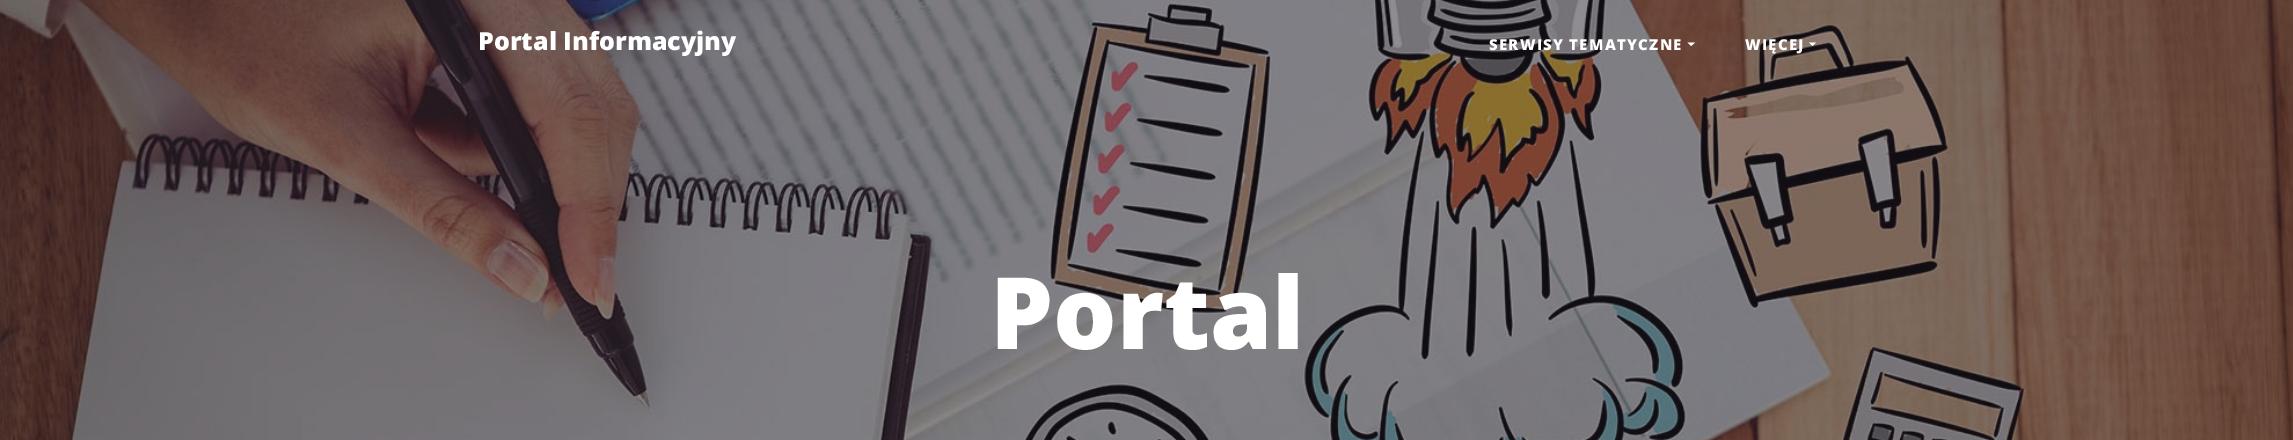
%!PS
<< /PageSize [2293 440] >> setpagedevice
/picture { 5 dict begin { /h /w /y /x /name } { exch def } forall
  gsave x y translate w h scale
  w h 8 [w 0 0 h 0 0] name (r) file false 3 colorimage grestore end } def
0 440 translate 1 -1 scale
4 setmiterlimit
1 setgray
0 0 2293 440 rectfill
(img1.rgb) 0 0 2293 440 picture
/OpenSans-ExtraBold [25 0 0 -25 0 0] selectfont
478 50 moveto (Portal Informacyjny) show
/OpenSans-ExtraBold [15 0 0 -15 0 0] selectfont
1489 50 moveto 1.25 0 (SERWISY TEMATYCZNE) ashow
newpath 1687.5 42.5 moveto 1695 42.5 lineto 1691 46 lineto closepath fill
1745 50 moveto 1.25 0 (WIĘCEJ) ashow
newpath 1809 42.5 moveto 1816 42.5 lineto 1812.5 46 lineto closepath fill
/OpenSans-ExtraBold [100 0 0 -100 0 0] selectfont
990 349 moveto (Portal) show
showpage
